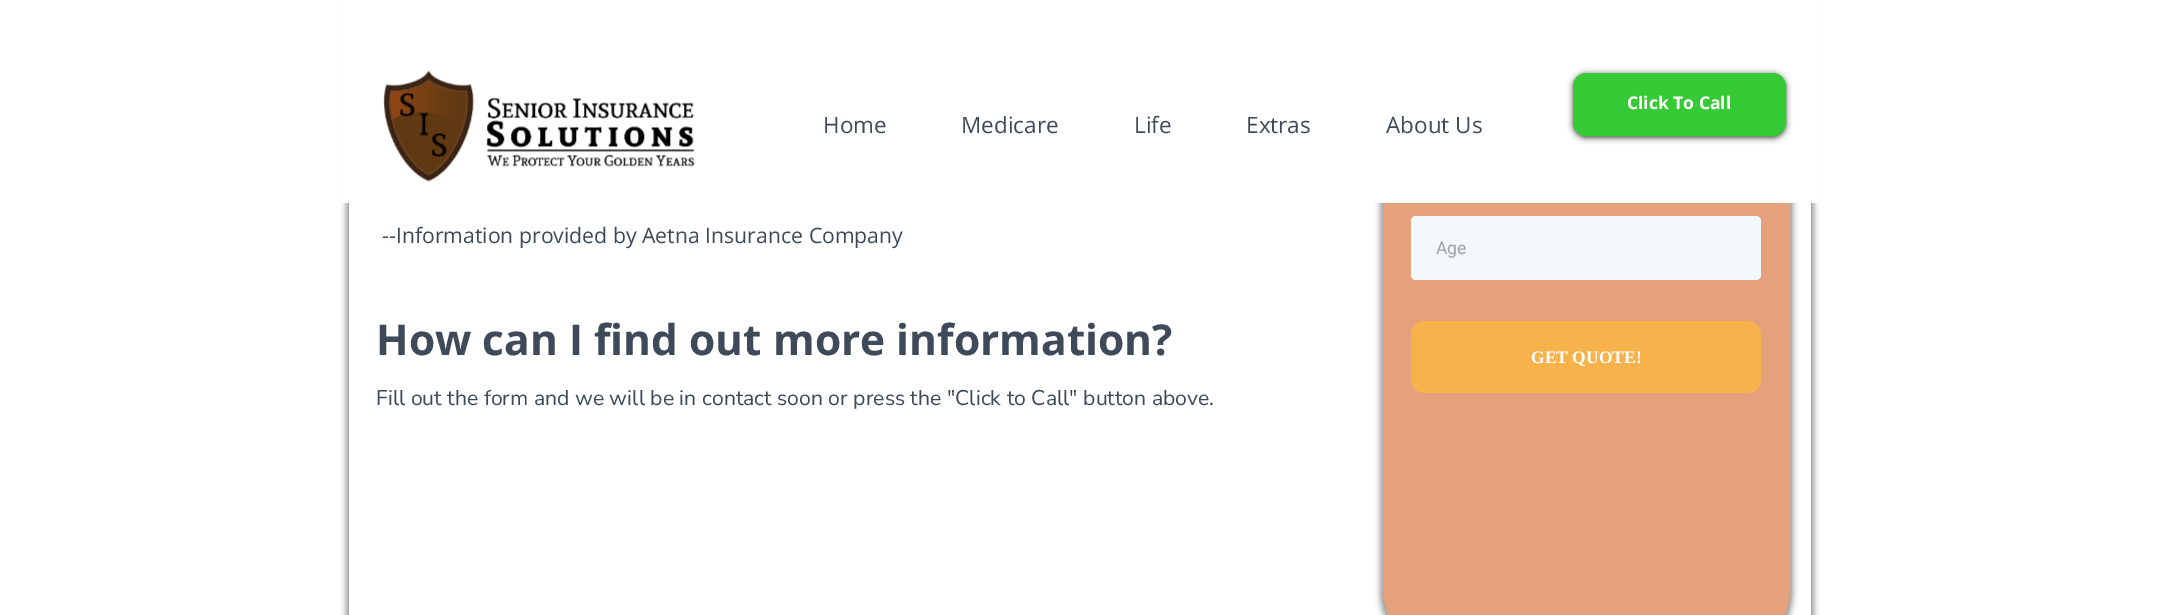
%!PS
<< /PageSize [2158 615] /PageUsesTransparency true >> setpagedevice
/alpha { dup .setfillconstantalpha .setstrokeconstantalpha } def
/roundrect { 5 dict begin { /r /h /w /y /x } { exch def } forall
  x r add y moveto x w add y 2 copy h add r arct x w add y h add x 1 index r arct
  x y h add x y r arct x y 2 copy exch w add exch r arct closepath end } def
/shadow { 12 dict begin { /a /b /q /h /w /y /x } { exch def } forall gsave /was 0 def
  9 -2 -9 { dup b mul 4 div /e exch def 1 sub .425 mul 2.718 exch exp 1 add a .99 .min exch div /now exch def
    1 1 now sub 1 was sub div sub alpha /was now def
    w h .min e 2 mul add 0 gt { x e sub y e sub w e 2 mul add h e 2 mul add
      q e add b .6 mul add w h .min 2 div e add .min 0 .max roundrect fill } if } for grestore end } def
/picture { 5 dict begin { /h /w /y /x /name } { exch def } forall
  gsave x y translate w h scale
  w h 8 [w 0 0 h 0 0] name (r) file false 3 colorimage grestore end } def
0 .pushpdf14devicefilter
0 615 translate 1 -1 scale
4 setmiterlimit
1 setgray
0 0 2158 615 rectfill
gsave
newpath 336 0 moveto 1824 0 lineto 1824 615 lineto 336 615 lineto closepath 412 -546 moveto 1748 -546 lineto 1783 -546 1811 -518 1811 -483 curveto 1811 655 lineto 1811 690 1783 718 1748 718 curveto 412 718 lineto 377 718 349 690 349 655 curveto 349 -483 lineto 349 -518 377 -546 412 -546 curveto closepath eoclip newpath
0 setgray
346 -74 1468 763 65 3 0.4 shadow
grestore
0 setgray
1380 -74 413 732 65 3 0.4 shadow
0.898 0.631 0.486 setrgbcolor
1384.5 -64.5 404 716 61.5 roundrect gsave fill grestore
3 setlinewidth
stroke
1 setgray
340 0 1480 203 rectfill
0 setgray
1573 74 213 64 13 3 0.7 shadow
0.216 0.792 0.216 setrgbcolor
1574.5 74.5 210 60 11.5 roundrect gsave fill grestore
stroke
/OpenSans-Bold [17.5 0 0 -17.5 0 0] selectfont
1 setgray
1627 109 moveto (Click To Call) show
(img1.rgb) 383 70 312 112 picture
/OpenSans-Regular [22.5 0 0 -22.5 0 0] selectfont
0.243 0.29 0.349 setrgbcolor
823 133 moveto (Home) show
961 133 moveto (Medicare) show
1134 133 moveto (Life) show
1246 133 moveto (Extras) show
1386 133 moveto (About Us) show
/OpenSans-Regular [21.25 0 0 -21.25 0 0] selectfont
382 243 moveto (--Information provided by Aetna Insurance Company) show
/OpenSans-Bold [42.5 0 0 -42.5 0 0] selectfont
376 355 moveto (How can I find out more information?) show
/NunitoSans-Regular [21.25 0 0 -21.25 0 0] selectfont
376 405 moveto (Fill out the form and we will be in contact soon or press the "Click to Call" button above.) show
0.953 0.973 0.984 setrgbcolor
1411 216 350 64 5 roundrect fill
/Roboto-Regular [17.5 0 0 -17.5 0 0] selectfont
0.624 0.631 0.639 setrgbcolor
1436 254 moveto (Age) show
0.973 0.698 0.294 setrgbcolor
1411 321 350 72 14 roundrect fill
/LiberationSerif-Bold [17.5 0 0 -17.5 0 0] selectfont
1 setgray
1531 363 moveto (GET QUOTE!) show
.poppdf14devicefilter showpage
